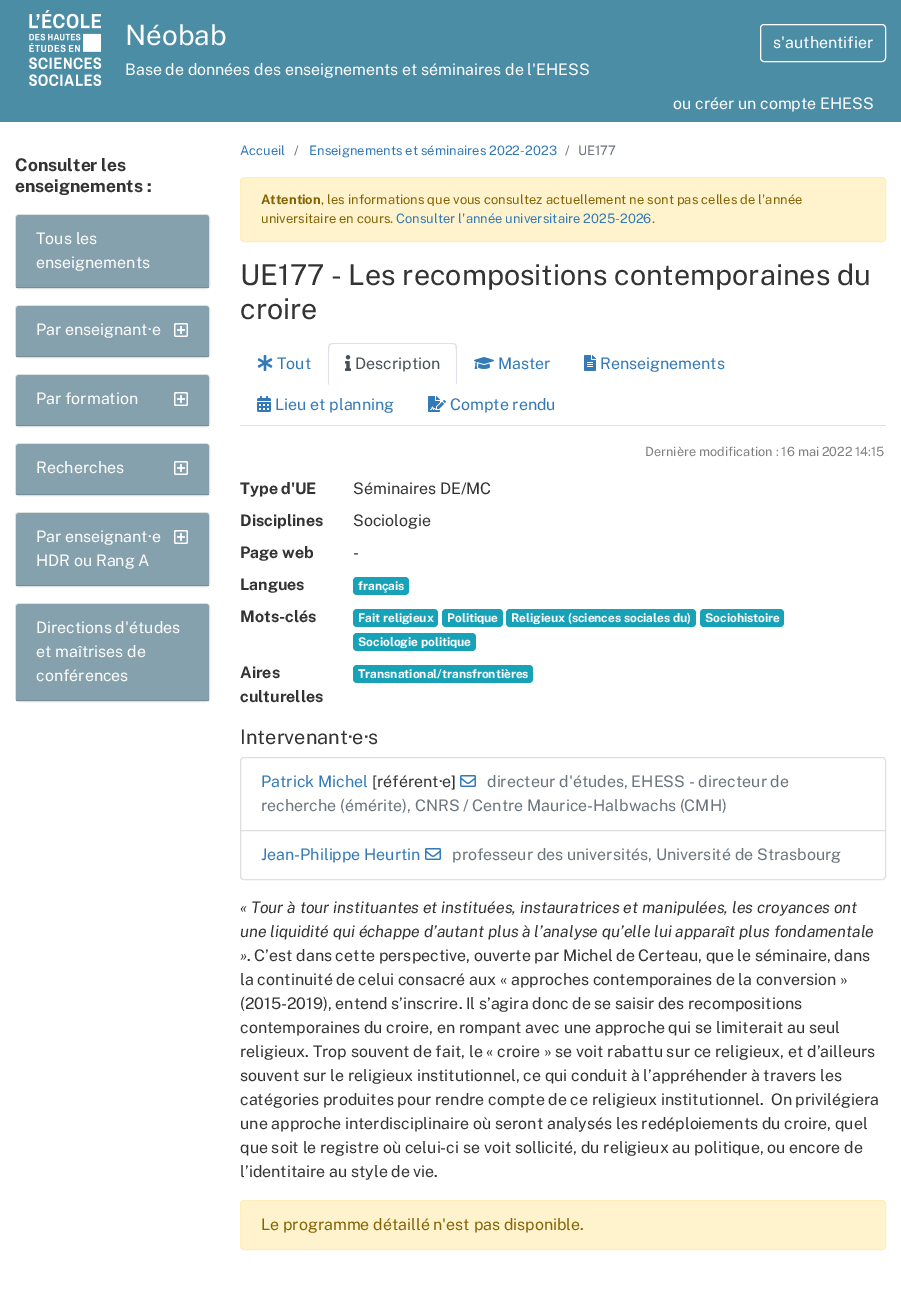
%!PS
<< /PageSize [901 1294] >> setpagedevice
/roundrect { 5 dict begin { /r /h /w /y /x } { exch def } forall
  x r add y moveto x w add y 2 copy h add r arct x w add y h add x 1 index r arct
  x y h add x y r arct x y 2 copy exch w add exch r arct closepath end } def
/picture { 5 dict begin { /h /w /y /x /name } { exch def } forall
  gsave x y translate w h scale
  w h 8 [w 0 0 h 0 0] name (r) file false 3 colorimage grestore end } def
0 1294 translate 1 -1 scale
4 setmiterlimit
0.298 0.553 0.651 setrgbcolor
0 0 901 1294 rectfill
(img1.rgb) 29 10 73 76 picture
/PublicSans-Regular [28 0 0 -28 0 0] selectfont
1 setgray
125 45 moveto (Néobab) show
/PublicSans-Regular [16 0 0 -16 0 0] selectfont
125 75 moveto (Base de données des enseignements et séminaires de l'EHESS) show
760.5 24.5 125 37 3.5 roundrect stroke
773 48 moveto (s'authentifier) show
673 109 moveto (ou créer un compte EHESS) show
0 122 901 1172 rectfill
/PublicSans-Bold [17.5 0 0 -17.5 0 0] selectfont
0.2 setgray
15 171 moveto (Consulter les) show
15 192 moveto (enseignements :) show
0.875 setgray
15.5 214.5 194 74 3.5 roundrect stroke
0.518 0.631 0.678 setrgbcolor
newpath 19 215 moveto 206 215 lineto 207.5 215 209 216.5 209 218 curveto 209 288 lineto 16 288 lineto 16 218 lineto 16 216.5 17.5 215 19 215 curveto closepath fill
0.455 0.553 0.592 setrgbcolor
16 287 193 1 rectfill
/PublicSans-Regular [16 0 0 -16 0 0] selectfont
1 setgray
36 244 moveto (Tous les) show
36 268 moveto (enseignements) show
0.875 setgray
15.5 305.5 194 52 3.5 roundrect stroke
0.518 0.631 0.678 setrgbcolor
newpath 19 306 moveto 206 306 lineto 207.5 306 209 307.5 209 309 curveto 209 357 lineto 16 357 lineto 16 309 lineto 16 307.5 17.5 306 19 306 curveto closepath fill
0.455 0.553 0.592 setrgbcolor
16 356 193 1 rectfill
1 setgray
36 335 moveto (Par enseignant·e) show
(img2.rgb) 174 323 14 14 picture
0.875 setgray
15.5 374.5 194 52 3.5 roundrect stroke
0.518 0.631 0.678 setrgbcolor
newpath 19 375 moveto 206 375 lineto 207.5 375 209 376.5 209 378 curveto 209 426 lineto 16 426 lineto 16 378 lineto 16 376.5 17.5 375 19 375 curveto closepath fill
0.455 0.553 0.592 setrgbcolor
16 425 193 1 rectfill
1 setgray
36 404 moveto (Par formation) show
(img2.rgb) 174 392 14 14 picture
0.875 setgray
15.5 443.5 194 52 3.5 roundrect stroke
0.518 0.631 0.678 setrgbcolor
newpath 19 444 moveto 206 444 lineto 207.5 444 209 445.5 209 447 curveto 209 495 lineto 16 495 lineto 16 447 lineto 16 445.5 17.5 444 19 444 curveto closepath fill
0.455 0.553 0.592 setrgbcolor
16 494 193 1 rectfill
1 setgray
36 473 moveto (Recherches) show
(img2.rgb) 174 461 14 14 picture
0.875 setgray
15.5 512.5 194 74 3.5 roundrect stroke
0.518 0.631 0.678 setrgbcolor
newpath 19 513 moveto 206 513 lineto 207.5 513 209 514.5 209 516 curveto 209 586 lineto 16 586 lineto 16 516 lineto 16 514.5 17.5 513 19 513 curveto closepath fill
0.455 0.553 0.592 setrgbcolor
16 585 193 1 rectfill
1 setgray
36 542 moveto (Par enseignant·e) show
(img2.rgb) 174 530 14 14 picture
36 566 moveto (HDR ou Rang A) show
0.875 setgray
15.5 603.5 194 98 3.5 roundrect stroke
0.518 0.631 0.678 setrgbcolor
newpath 19 604 moveto 206 604 lineto 207.5 604 209 605.5 209 607 curveto 209 701 lineto 16 701 lineto 16 607 lineto 16 605.5 17.5 604 19 604 curveto closepath fill
0.455 0.553 0.592 setrgbcolor
16 700 193 1 rectfill
1 setgray
36 633 moveto (Directions d'études) show
36 657 moveto (et maîtrises de) show
36 681 moveto (conférences) show
/PublicSans-Regular [13 0 0 -13 0 0] selectfont
0.2 0.478 0.718 setrgbcolor
240 155 moveto (Accueil) show
0.424 0.459 0.49 setrgbcolor
294 155 moveto (/) show
0.2 0.478 0.718 setrgbcolor
309 155 moveto (Enseignements et séminaires 2022-2023) show
0.424 0.459 0.49 setrgbcolor
565 155 moveto (/) show
578 155 moveto (UE177) show
1 0.953 0.804 setrgbcolor
240.5 177.5 645 64 3.5 roundrect gsave fill grestore
1 0.933 0.729 setrgbcolor
stroke
/PublicSans-Bold [13 0 0 -13 0 0] selectfont
0.522 0.392 0.016 setrgbcolor
261 204 moveto (Attention) show
/PublicSans-Regular [13 0 0 -13 0 0] selectfont
321 204 moveto (, les informations que vous consultez actuellement ne sont pas celles de l'année) show
261 223 moveto (universitaire en cours.) show
0.2 0.478 0.718 setrgbcolor
396 223 moveto (Consulter l'année universitaire 2025-2026) show
0.522 0.392 0.016 setrgbcolor
652 223 moveto (.) show
/PublicSans-Regular [28.8 0 0 -28.8 0 0] selectfont
0.2 setgray
240 285 moveto (UE177 - Les recompositions contemporaines du) show
240 319 moveto (croire) show
0.871 0.886 0.902 setrgbcolor
240 425 646 1 rectfill
(img3.rgb) 257 355 16 16 picture
/PublicSans-Regular [16 0 0 -16 0 0] selectfont
0.2 0.478 0.718 setrgbcolor
277 369 moveto (Tout) show
0.871 0.886 0.902 setrgbcolor
newpath 332 343 moveto 329 344 lineto 330 345 lineto 332 344 lineto 453 344 lineto 455 345 lineto 456 344 lineto 453 343 lineto closepath fill
newpath 457 385 moveto 457 347 lineto 457 346 456 345 456 344 curveto 455 345 lineto 457 347 456 379 456 384 curveto closepath fill
1 setgray
newpath 457 385 moveto 456 384 lineto 329 384 lineto 328 385 lineto closepath fill
0.871 0.886 0.902 setrgbcolor
newpath 328 385 moveto 329 384 lineto 329 379 328 347 330 345 curveto 329 344 lineto 328 347 lineto closepath fill
(img4.rgb) 345 355 6 16 picture
0.286 0.314 0.341 setrgbcolor
355 369 moveto (Description) show
(img5.rgb) 474 357 20 12 picture
0.2 0.478 0.718 setrgbcolor
498 369 moveto (Master) show
(img6.rgb) 584 355 12 16 picture
600 369 moveto (Renseignements) show
(img7.rgb) 257 396 14 16 picture
275 410 moveto (Lieu et planning) show
(img8.rgb) 428 396 18 16 picture
450 410 moveto (Compte rendu) show
/PublicSans-Regular [12.75 0 0 -12.75 0 0] selectfont
0.502 setgray
645 456 moveto (Dernière modification : 16 mai 2022 14:15) show
/PublicSans-Bold [16 0 0 -16 0 0] selectfont
0.2 setgray
240 494 moveto (Type d'UE) show
/PublicSans-Regular [16 0 0 -16 0 0] selectfont
353 494 moveto (Séminaires DE/MC) show
/PublicSans-Bold [16 0 0 -16 0 0] selectfont
240 526 moveto (Disciplines) show
/PublicSans-Regular [16 0 0 -16 0 0] selectfont
353 526 moveto (Sociologie) show
/PublicSans-Bold [16 0 0 -16 0 0] selectfont
240 558 moveto (Page web) show
/PublicSans-Regular [16 0 0 -16 0 0] selectfont
353 558 moveto (-) show
/PublicSans-Bold [16 0 0 -16 0 0] selectfont
240 590 moveto (Langues) show
0.09 0.635 0.722 setrgbcolor
353 577 56 18 4 roundrect fill
/PublicSans-Bold [12 0 0 -12 0 0] selectfont
1 setgray
358 590 moveto (français) show
/PublicSans-Bold [16 0 0 -16 0 0] selectfont
0.2 setgray
240 622 moveto (Mots-clés) show
0.09 0.635 0.722 setrgbcolor
353 609 85 18 4 roundrect fill
/PublicSans-Bold [12 0 0 -12 0 0] selectfont
1 setgray
358 622 moveto (Fait religieux) show
0.09 0.635 0.722 setrgbcolor
442 609 61 18 4 roundrect fill
1 setgray
447 622 moveto (Politique) show
0.09 0.635 0.722 setrgbcolor
506 609 190 18 4 roundrect fill
1 setgray
511 622 moveto (Religieux \(sciences sociales du\)) show
0.09 0.635 0.722 setrgbcolor
700 609 84 18 4 roundrect fill
1 setgray
705 622 moveto (Sociohistoire) show
0.09 0.635 0.722 setrgbcolor
353 633 123 18 4 roundrect fill
1 setgray
358 646 moveto (Sociologie politique) show
/PublicSans-Bold [16 0 0 -16 0 0] selectfont
0.2 setgray
240 678 moveto (Aires) show
240 702 moveto (culturelles) show
0.09 0.635 0.722 setrgbcolor
353 665 180 18 4 roundrect fill
/PublicSans-Bold [12 0 0 -12 0 0] selectfont
1 setgray
358 678 moveto (Transnational/transfrontières) show
/PublicSans-Regular [20 0 0 -20 0 0] selectfont
0.2 setgray
240 744 moveto (Intervenant·e·s) show
0.875 setgray
newpath 244 757.5 moveto 882 757.5 lineto 884 757.5 885.5 759 885.5 761 curveto 885.5 830.5 lineto 240.5 830.5 lineto 240.5 761 lineto 240.5 759 242 757.5 244 757.5 curveto closepath stroke
/PublicSans-Regular [16 0 0 -16 0 0] selectfont
0.2 0.478 0.718 setrgbcolor
261 787 moveto (Patrick Michel) show
0.2 setgray
372 787 moveto ([référent·e]) show
(img9.rgb) 460 775 16 12 picture
0.424 0.459 0.49 setrgbcolor
487 787 moveto (directeur d'études, EHESS - directeur de) show
261 811 moveto (recherche \(émérite\), CNRS / Centre Maurice-Halbwachs \(CMH\)) show
1 setgray
newpath 240.5 830.5 moveto 885.5 830.5 lineto 885.5 876 lineto 885.5 878 884 879.5 882 879.5 curveto 244 879.5 lineto 242 879.5 240.5 878 240.5 876 curveto closepath gsave fill grestore
0.875 setgray
stroke
0.2 0.478 0.718 setrgbcolor
261 860 moveto (Jean-Philippe Heurtin) show
(img9.rgb) 425 848 16 12 picture
0.424 0.459 0.49 setrgbcolor
452 860 moveto (professeur des universités, Université de Strasbourg) show
/PublicSans-Italic [16 0 0 -16 0 0] selectfont
0.2 setgray
240 913 moveto (« Tour à tour instituantes et instituées, instauratrices et manipulées, les croyances ont) show
240 937 moveto (une liquidité qui échappe d’autant plus à l’analyse qu’elle lui apparaît plus fondamentale) show
240 961 moveto (») show
/PublicSans-Regular [16 0 0 -16 0 0] selectfont
247 961 moveto (. C’est dans cette perspective, ouverte par Michel de Certeau, que le séminaire, dans) show
240 985 moveto (la continuité de celui consacré aux « approches contemporaines de la conversion ») show
240 1009 moveto (\(2015-2019\), entend s’inscrire. Il s’agira donc de se saisir des recompositions) show
240 1033 moveto (contemporaines du croire, en rompant avec une approche qui se limiterait au seul) show
240 1057 moveto (religieux. Trop souvent de fait, le « croire » se voit rabattu sur ce religieux, et d’ailleurs) show
240 1081 moveto (souvent sur le religieux institutionnel, ce qui conduit à l’appréhender à travers les) show
240 1105 moveto (catégories produites pour rendre compte de ce religieux institutionnel.  On privilégiera) show
240 1129 moveto (une approche interdisciplinaire où seront analysés les redéploiements du croire, quel) show
240 1153 moveto (que soit le registre où celui-ci se voit sollicité, du religieux au politique, ou encore de) show
240 1177 moveto (l’identitaire au style de vie.) show
1 0.953 0.804 setrgbcolor
240.5 1200.5 645 49 3.5 roundrect gsave fill grestore
1 0.933 0.729 setrgbcolor
stroke
0.522 0.392 0.016 setrgbcolor
261 1230 moveto (Le programme détaillé n'est pas disponible.) show
showpage
